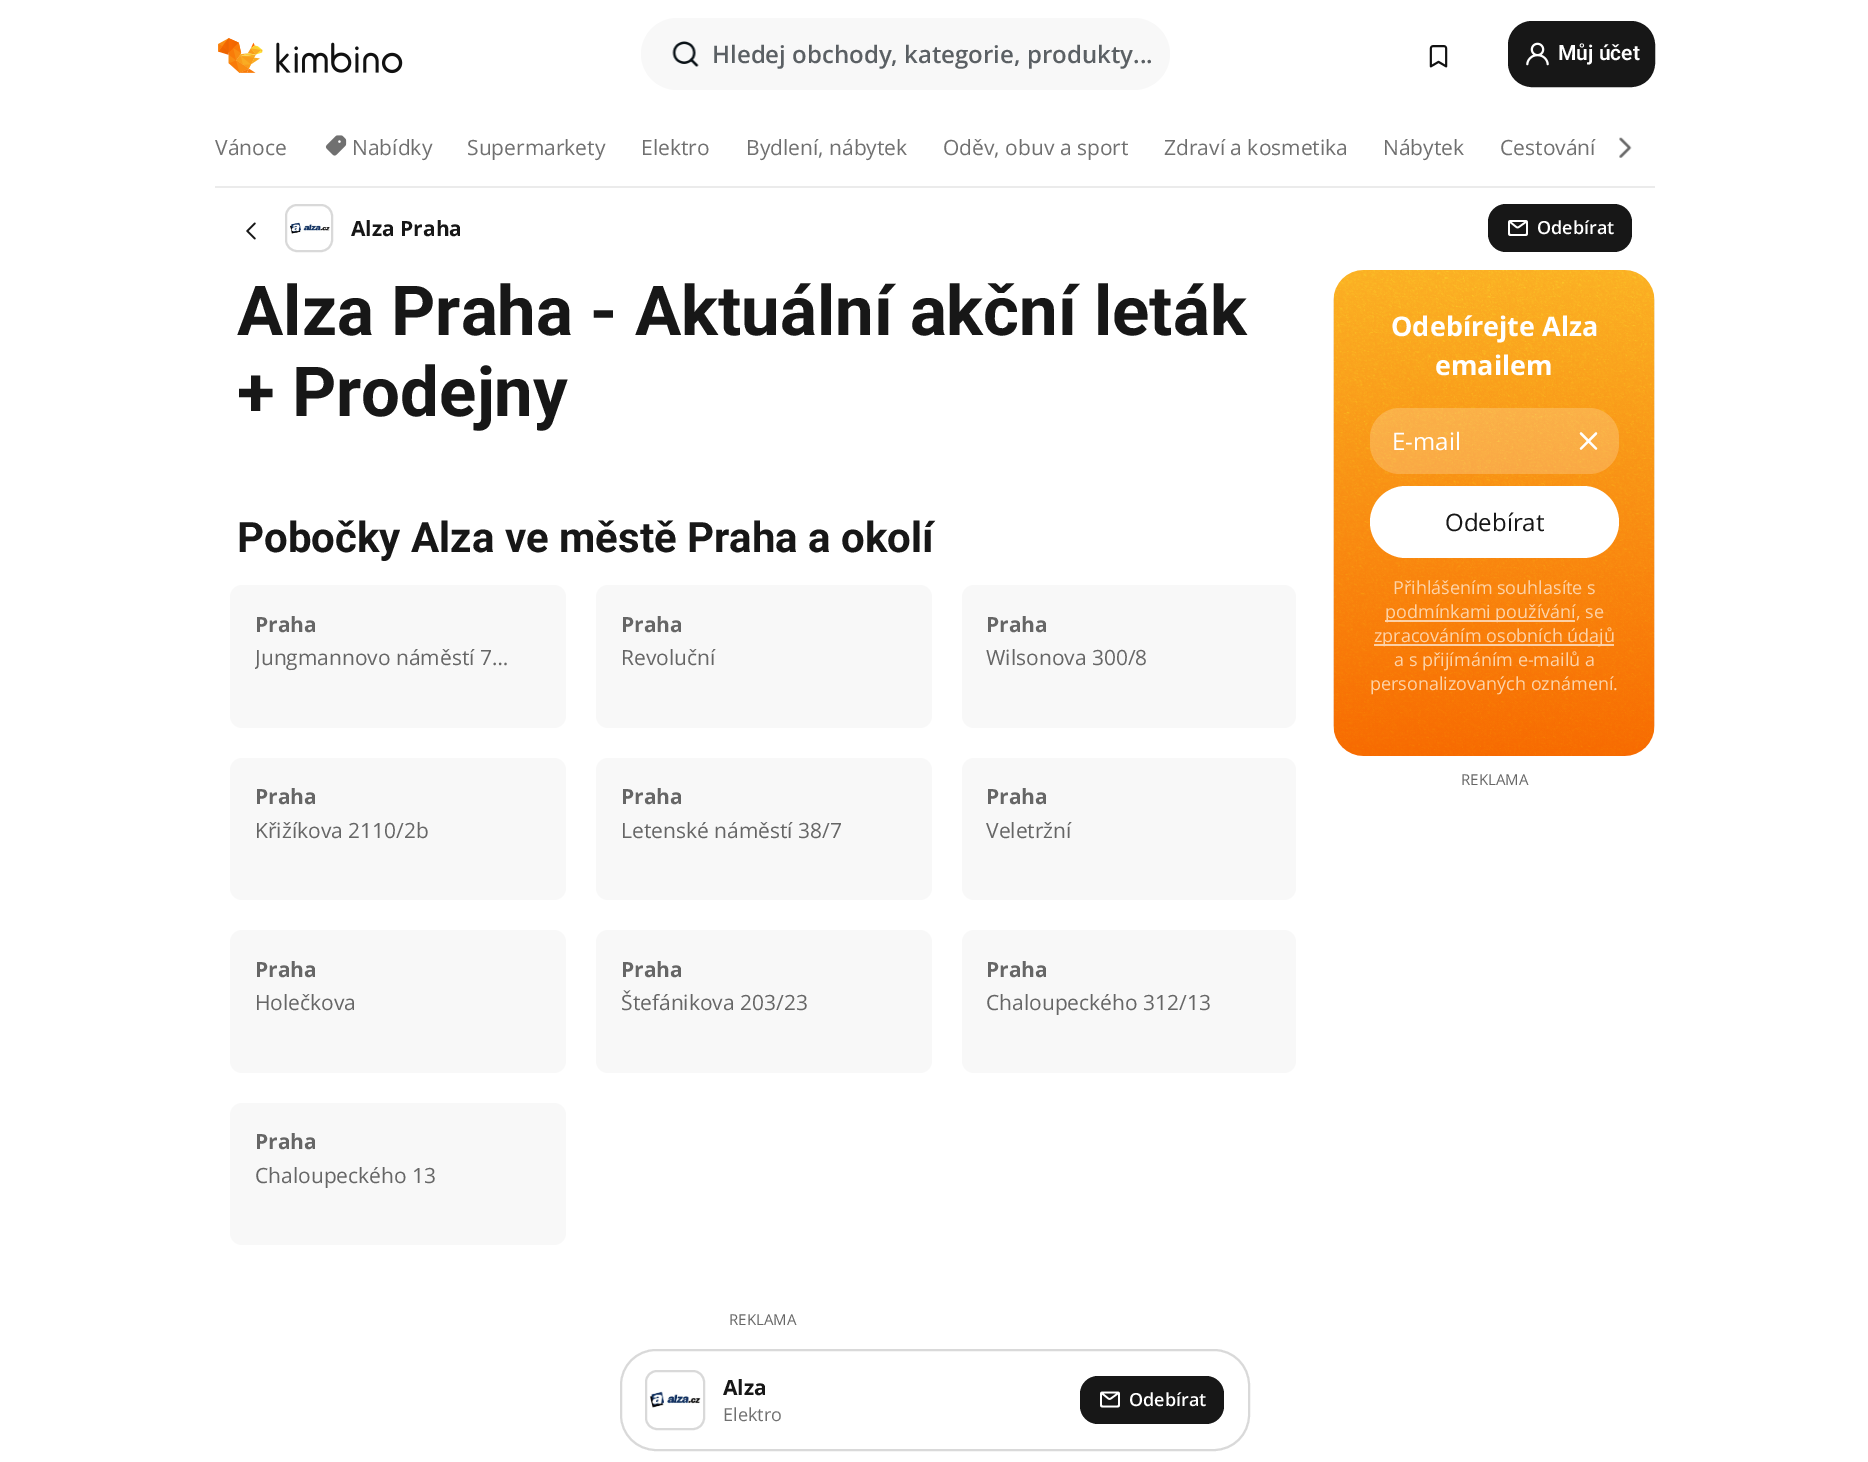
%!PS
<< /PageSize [1868 1462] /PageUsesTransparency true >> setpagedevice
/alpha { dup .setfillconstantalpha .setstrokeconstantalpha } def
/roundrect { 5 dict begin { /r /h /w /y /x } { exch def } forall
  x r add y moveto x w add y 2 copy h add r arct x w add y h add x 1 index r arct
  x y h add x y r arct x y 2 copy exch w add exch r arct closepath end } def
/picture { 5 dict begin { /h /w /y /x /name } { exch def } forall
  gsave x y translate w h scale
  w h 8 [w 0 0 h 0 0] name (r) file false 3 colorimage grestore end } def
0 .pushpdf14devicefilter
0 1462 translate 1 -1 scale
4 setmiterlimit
1 setgray
0 0 1868 1462 rectfill
(img1.rgb) 218 38 185 36 picture
0.973 setgray
641 18 529 72 36 roundrect fill
(img2.rgb) 672 41 27 26 picture
/OpenSans-SemiBold [24 0 0 -24 0 0] selectfont
0.357 0.376 0.392 setrgbcolor
712 63 moveto (Hledej obchody, kategorie, produkty...) show
(img3.rgb) 1429 45 19 23 picture
0.09 setgray
1509.5 22.5 144 63 22.5 roundrect gsave fill grestore
3 setlinewidth
stroke
(img4.rgb) 1526 42 23 24 picture
/Roboto-SemiBold [21 0 0 -21 0 0] selectfont
1 setgray
1558 60 moveto (Můj účet) show
0.922 setgray
215 186 1440 2 rectfill
/OpenSans-Regular [21 0 0 -21 0 0] selectfont
0.439 setgray
215 155 moveto (Vánoce) show
(img5.rgb) 325 135 22 21 picture
352 155 moveto (Nabídky) show
467 155 moveto (Supermarkety) show
641 155 moveto (Elektro) show
746 155 moveto (Bydlení, nábytek) show
943 155 moveto (Oděv, obuv a sport) show
1164 155 moveto (Zdraví a kosmetika) show
1383 155 moveto (Nábytek) show
1500 155 moveto (Cestování) show
(img6.rgb) 1619 137 13 21 picture
(img7.rgb) 246 222 10 18 picture
0.851 setgray
2 setlinewidth
286 205 46 46 11 roundrect stroke
(img8.rgb) 290 222 40 12 picture
/OpenSans-Bold [21 0 0 -21 0 0] selectfont
0.09 setgray
351 236 moveto (Alza Praha) show
1488 204 144 48 18 roundrect fill
(img9.rgb) 1508 220 20 16 picture
/OpenSans-SemiBold [18 0 0 -18 0 0] selectfont
1 setgray
1537 234 moveto (Odebírat) show
/Roboto-Bold [69 0 0 -69 0 0] selectfont
0.09 setgray
237 335 moveto (Alza Praha - Aktuální akční leták) show
237 416 moveto (+ Prodejny) show
/Roboto-Bold [42 0 0 -42 0 0] selectfont
237 552 moveto (Pobočky Alza ve městě Praha a okolí) show
0.973 setgray
230 585 336 143 12 roundrect fill
/OpenSans-Bold [21 0 0 -21 0 0] selectfont
0.4 setgray
255 632 moveto (Praha) show
gsave
255 644 263 28 rectclip
/OpenSans-Regular [21 0 0 -21 0 0] selectfont
255 665 moveto (Jungmannovo náměstí 7…) show
grestore
0.973 setgray
596 585 336 143 12 roundrect fill
0.4 setgray
621 632 moveto (Praha) show
/OpenSans-Regular [21 0 0 -21 0 0] selectfont
621 665 moveto (Revoluční) show
0.973 setgray
962 585 334 143 12 roundrect fill
/OpenSans-Bold [21 0 0 -21 0 0] selectfont
0.4 setgray
986 632 moveto (Praha) show
/OpenSans-Regular [21 0 0 -21 0 0] selectfont
986 665 moveto (Wilsonova 300/8) show
0.973 setgray
230 758 336 142 12 roundrect fill
/OpenSans-Bold [21 0 0 -21 0 0] selectfont
0.4 setgray
255 804 moveto (Praha) show
/OpenSans-Regular [21 0 0 -21 0 0] selectfont
255 838 moveto (Křižíkova 2110/2b) show
0.973 setgray
596 758 336 142 12 roundrect fill
/OpenSans-Bold [21 0 0 -21 0 0] selectfont
0.4 setgray
621 804 moveto (Praha) show
/OpenSans-Regular [21 0 0 -21 0 0] selectfont
621 838 moveto (Letenské náměstí 38/7) show
0.973 setgray
962 758 334 142 12 roundrect fill
/OpenSans-Bold [21 0 0 -21 0 0] selectfont
0.4 setgray
986 804 moveto (Praha) show
/OpenSans-Regular [21 0 0 -21 0 0] selectfont
986 838 moveto (Veletržní) show
0.973 setgray
230 930 336 143 12 roundrect fill
/OpenSans-Bold [21 0 0 -21 0 0] selectfont
0.4 setgray
255 977 moveto (Praha) show
/OpenSans-Regular [21 0 0 -21 0 0] selectfont
255 1010 moveto (Holečkova) show
0.973 setgray
596 930 336 143 12 roundrect fill
/OpenSans-Bold [21 0 0 -21 0 0] selectfont
0.4 setgray
621 977 moveto (Praha) show
/OpenSans-Regular [21 0 0 -21 0 0] selectfont
621 1010 moveto (Štefánikova 203/23) show
0.973 setgray
962 930 334 143 12 roundrect fill
/OpenSans-Bold [21 0 0 -21 0 0] selectfont
0.4 setgray
986 977 moveto (Praha) show
/OpenSans-Regular [21 0 0 -21 0 0] selectfont
986 1010 moveto (Chaloupeckého 312/13) show
0.973 setgray
230 1103 336 142 12 roundrect fill
/OpenSans-Bold [21 0 0 -21 0 0] selectfont
0.4 setgray
255 1149 moveto (Praha) show
/OpenSans-Regular [21 0 0 -21 0 0] selectfont
255 1183 moveto (Chaloupeckého 13) show
/OpenSans-Regular [15 0 0 -15 0 0] selectfont
729 1325 moveto (REKLAMA) show
(img10.rgb) 1333 270 322 486 picture
/OpenSans-Bold [27 0 0 -27 0 0] selectfont
1 setgray
1391 336 moveto (Odebírejte Alza) show
1435 375 moveto (emailem) show
0.2 alpha
1370 408 249 66 30 roundrect fill
/OpenSans-Regular [24 0 0 -24 0 0] selectfont
1 alpha
1392 450 moveto (E-mail) show
(img11.rgb) 1579 432 19 18 picture
1370 486 249 72 36 roundrect fill
0.09 setgray
1445 531 moveto (Odebírat) show
/OpenSans-Regular [18 0 0 -18 0 0] selectfont
0.992 0.827 0.659 setrgbcolor
1393 594 moveto (Přihlášením souhlasíte s) show
0.64 alpha
1 setgray
1385 620 190 2 rectfill
1 alpha
0.992 0.827 0.659 setrgbcolor
1385 618 moveto (podmínkami používání) show
1576 618 moveto (, se) show
0.64 alpha
1 setgray
1374 644 240 2 rectfill
1 alpha
0.992 0.827 0.659 setrgbcolor
1374 642 moveto (zpracováním osobních údajů) show
1394 666 moveto (a s přijímáním e-mailů a) show
1370 690 moveto (personalizovaných oznámení.) show
/OpenSans-Regular [15 0 0 -15 0 0] selectfont
0.4 setgray
1461 785 moveto (REKLAMA) show
0.851 setgray
621 1350 628 100 35 roundrect stroke
646 1371 58 58 11 roundrect stroke
(img12.rgb) 649 1391 52 17 picture
/OpenSans-Bold [21 0 0 -21 0 0] selectfont
0.09 setgray
723 1395 moveto (Alza) show
/OpenSans-Regular [18 0 0 -18 0 0] selectfont
0.439 setgray
723 1421 moveto (Elektro) show
0.09 setgray
1080 1376 144 48 18 roundrect fill
(img13.rgb) 1100 1391 20 17 picture
/OpenSans-SemiBold [18 0 0 -18 0 0] selectfont
1 setgray
1129 1406 moveto (Odebírat) show
.poppdf14devicefilter showpage
